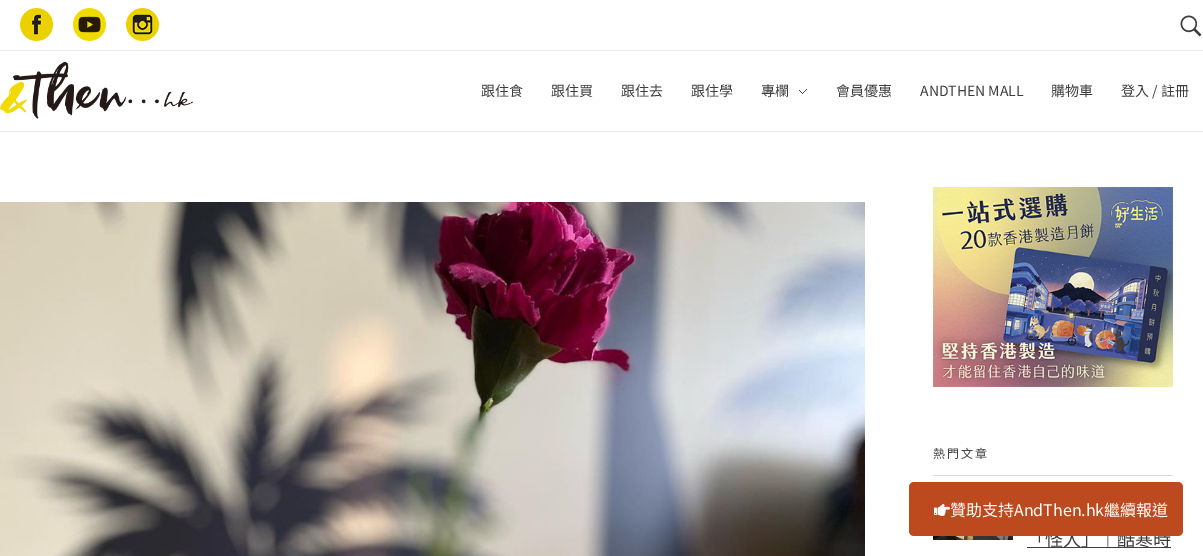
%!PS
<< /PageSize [1203 556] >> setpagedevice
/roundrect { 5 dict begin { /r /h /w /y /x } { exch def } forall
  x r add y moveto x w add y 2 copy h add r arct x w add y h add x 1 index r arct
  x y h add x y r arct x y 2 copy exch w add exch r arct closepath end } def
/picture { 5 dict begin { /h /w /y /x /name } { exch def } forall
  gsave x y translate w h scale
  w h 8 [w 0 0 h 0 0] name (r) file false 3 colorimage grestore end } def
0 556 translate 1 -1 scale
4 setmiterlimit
1 setgray
0 0 1203 556 rectfill
0.918 setgray
0 50 1203 1 rectfill
(img1.rgb) 20 8 33 33 picture
(img2.rgb) 73 8 33 33 picture
(img3.rgb) 126 8 33 33 picture
(img4.rgb) 1180 15 22 22 picture
0 131 1203 1 rectfill
(img5.rgb) 0 62 193 57 picture
/NotoSansHK-Regular [14 0 0 -14 0 0] selectfont
0.239 setgray
481 96 moveto (跟住食) show
551 96 moveto (跟住買) show
621 96 moveto (跟住去) show
691 96 moveto (跟住學) show
761 96 moveto (專欄) show
(img6.rgb) 799 89 8 5 picture
836 96 moveto (會員優惠) show
920 96 moveto (ANDTHEN MALL) show
1051 96 moveto (購物車) show
1121 96 moveto (登入 / 註冊) show
(img7.rgb) 0 202 865 354 picture
(img8.rgb) 933 187 240 200 picture
0.871 setgray
933 475 240 1 rectfill
/NotoSansHK-Regular [12 0 0 -12 0 0] selectfont
0.267 setgray
933 458 moveto 2 0 (熱門文章) ashow
(img9.rgb) 933 536 80 4 picture
0.239 setgray
1027 547 144 1 rectfill
/NotoSansHK-Regular [18 0 0 -18 0 0] selectfont
1027 546 moveto (「怪人」︱酷寒時) show
0.737 0.29 0.118 setrgbcolor
909 482 274 54 5 roundrect fill
(img10.rgb) 934 504 16 12 picture
/NotoSansHK-Regular [16 0 0 -16 0 0] selectfont
1 setgray
950 516 moveto (贊助支持AndThen.hk繼續報道) show
showpage
